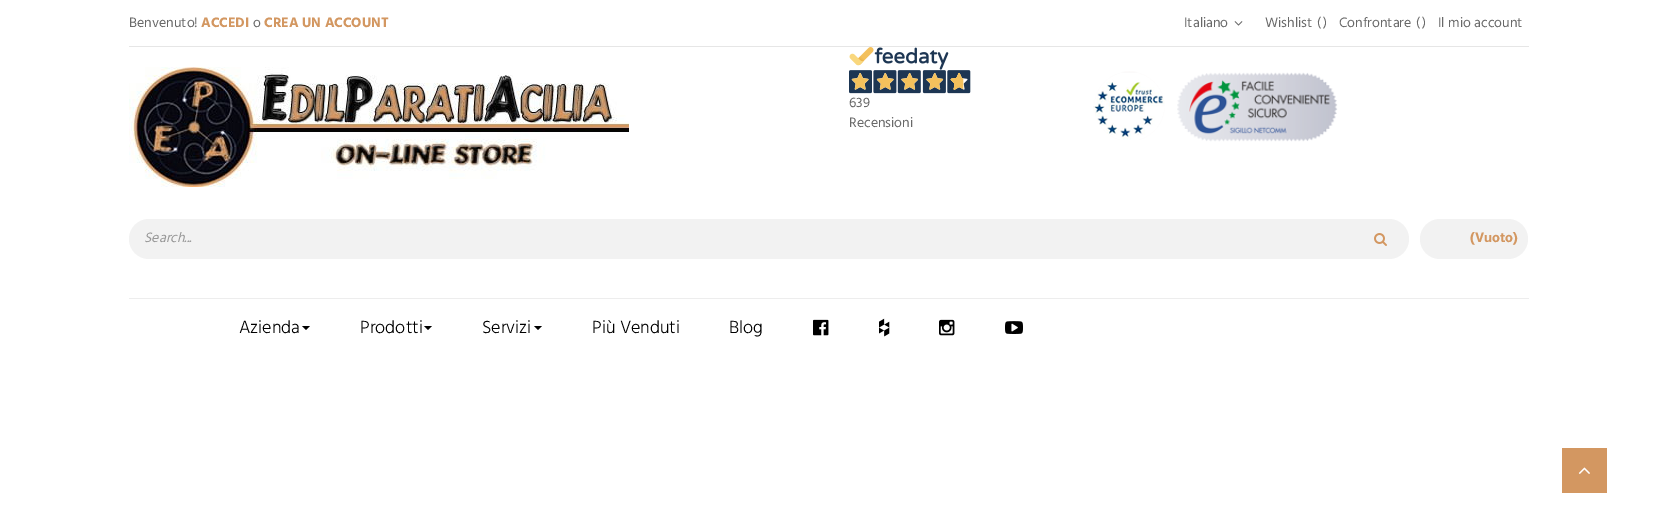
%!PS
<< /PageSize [1657 518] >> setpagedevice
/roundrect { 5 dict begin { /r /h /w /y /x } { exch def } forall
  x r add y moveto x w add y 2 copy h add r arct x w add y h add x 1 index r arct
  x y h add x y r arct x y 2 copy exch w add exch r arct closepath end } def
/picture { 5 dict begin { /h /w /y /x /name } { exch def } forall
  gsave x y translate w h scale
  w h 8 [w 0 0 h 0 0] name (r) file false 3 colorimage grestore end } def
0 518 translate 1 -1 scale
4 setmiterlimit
1 setgray
0 0 1657 518 rectfill
0.902 setgray
129 46 1400 1 rectfill
/Hind-Regular [14 0 0 -14 0 0] selectfont
0.412 setgray
129 27 moveto (Benvenuto!) show
/Hind-Bold [14 0 0 -14 0 0] selectfont
0.827 0.592 0.38 setrgbcolor
201 27 moveto (ACCEDI) show
/Hind-Regular [14 0 0 -14 0 0] selectfont
0.412 setgray
253 27 moveto (o) show
/Hind-Bold [14 0 0 -14 0 0] selectfont
0.827 0.592 0.38 setrgbcolor
264 27 moveto (CREA UN ACCOUNT) show
/Hind-Regular [14 0 0 -14 0 0] selectfont
0.412 setgray
1265 27 moveto (Wishlist) show
/Hind-Regular [13 0 0 -13 0 0] selectfont
1317 26 moveto (\() show
1323 26 moveto (\)) show
/Hind-Regular [14 0 0 -14 0 0] selectfont
1339 27 moveto (Confrontare) show
/Hind-Regular [13 0 0 -13 0 0] selectfont
1416 26 moveto (\() show
1422 26 moveto (\)) show
/Hind-Regular [14 0 0 -14 0 0] selectfont
1438 27 moveto (Il mio account) show
1184 27 moveto (Italiano) show
(img1.rgb) 1234 21 9 5 picture
(img2.rgb) 129 67 500 120 picture
(img3.rgb) 849 47 100 23 picture
(img4.rgb) 849 70 122 24 picture
849 107 moveto (639) show
849 127 moveto (Recensioni) show
(img5.rgb) 1093 71 72 69 picture
(img6.rgb) 1177 72 161 70 picture
0.949 setgray
129 219 1280 40 20 roundrect fill
/Hind-Italic [14 0 0 -14 0 0] selectfont
0.6 setgray
144 242 moveto (Search...) show
(img7.rgb) 1374 233 13 13 picture
0.949 setgray
1420 219 108 40 20 roundrect fill
/Hind-Bold [14 0 0 -14 0 0] selectfont
0.827 0.592 0.38 setrgbcolor
1470 242 moveto (\(Vuoto\)) show
0.929 setgray
129 298 1400 1 rectfill
/Hind-Light [18 0 0 -18 0 0] selectfont
0 setgray
239 333 moveto (Azienda) show
newpath 302 326 moveto 310 326 lineto 306 330 lineto closepath fill
360 333 moveto (Prodotti) show
newpath 424 326 moveto 432 326 lineto 428 330 lineto closepath fill
482 333 moveto (Servizi) show
newpath 534 326 moveto 542 326 lineto 538 330 lineto closepath fill
592 333 moveto (Più Venduti) show
729 333 moveto (Blog) show
(img8.rgb) 813 319 16 17 picture
(img9.rgb) 879 318 11 19 picture
(img10.rgb) 939 319 16 17 picture
(img11.rgb) 1005 321 18 13 picture
0.827 0.592 0.38 setrgbcolor
1562 448 45 45 rectfill
(img12.rgb) 1578 467 12 7 picture
showpage
